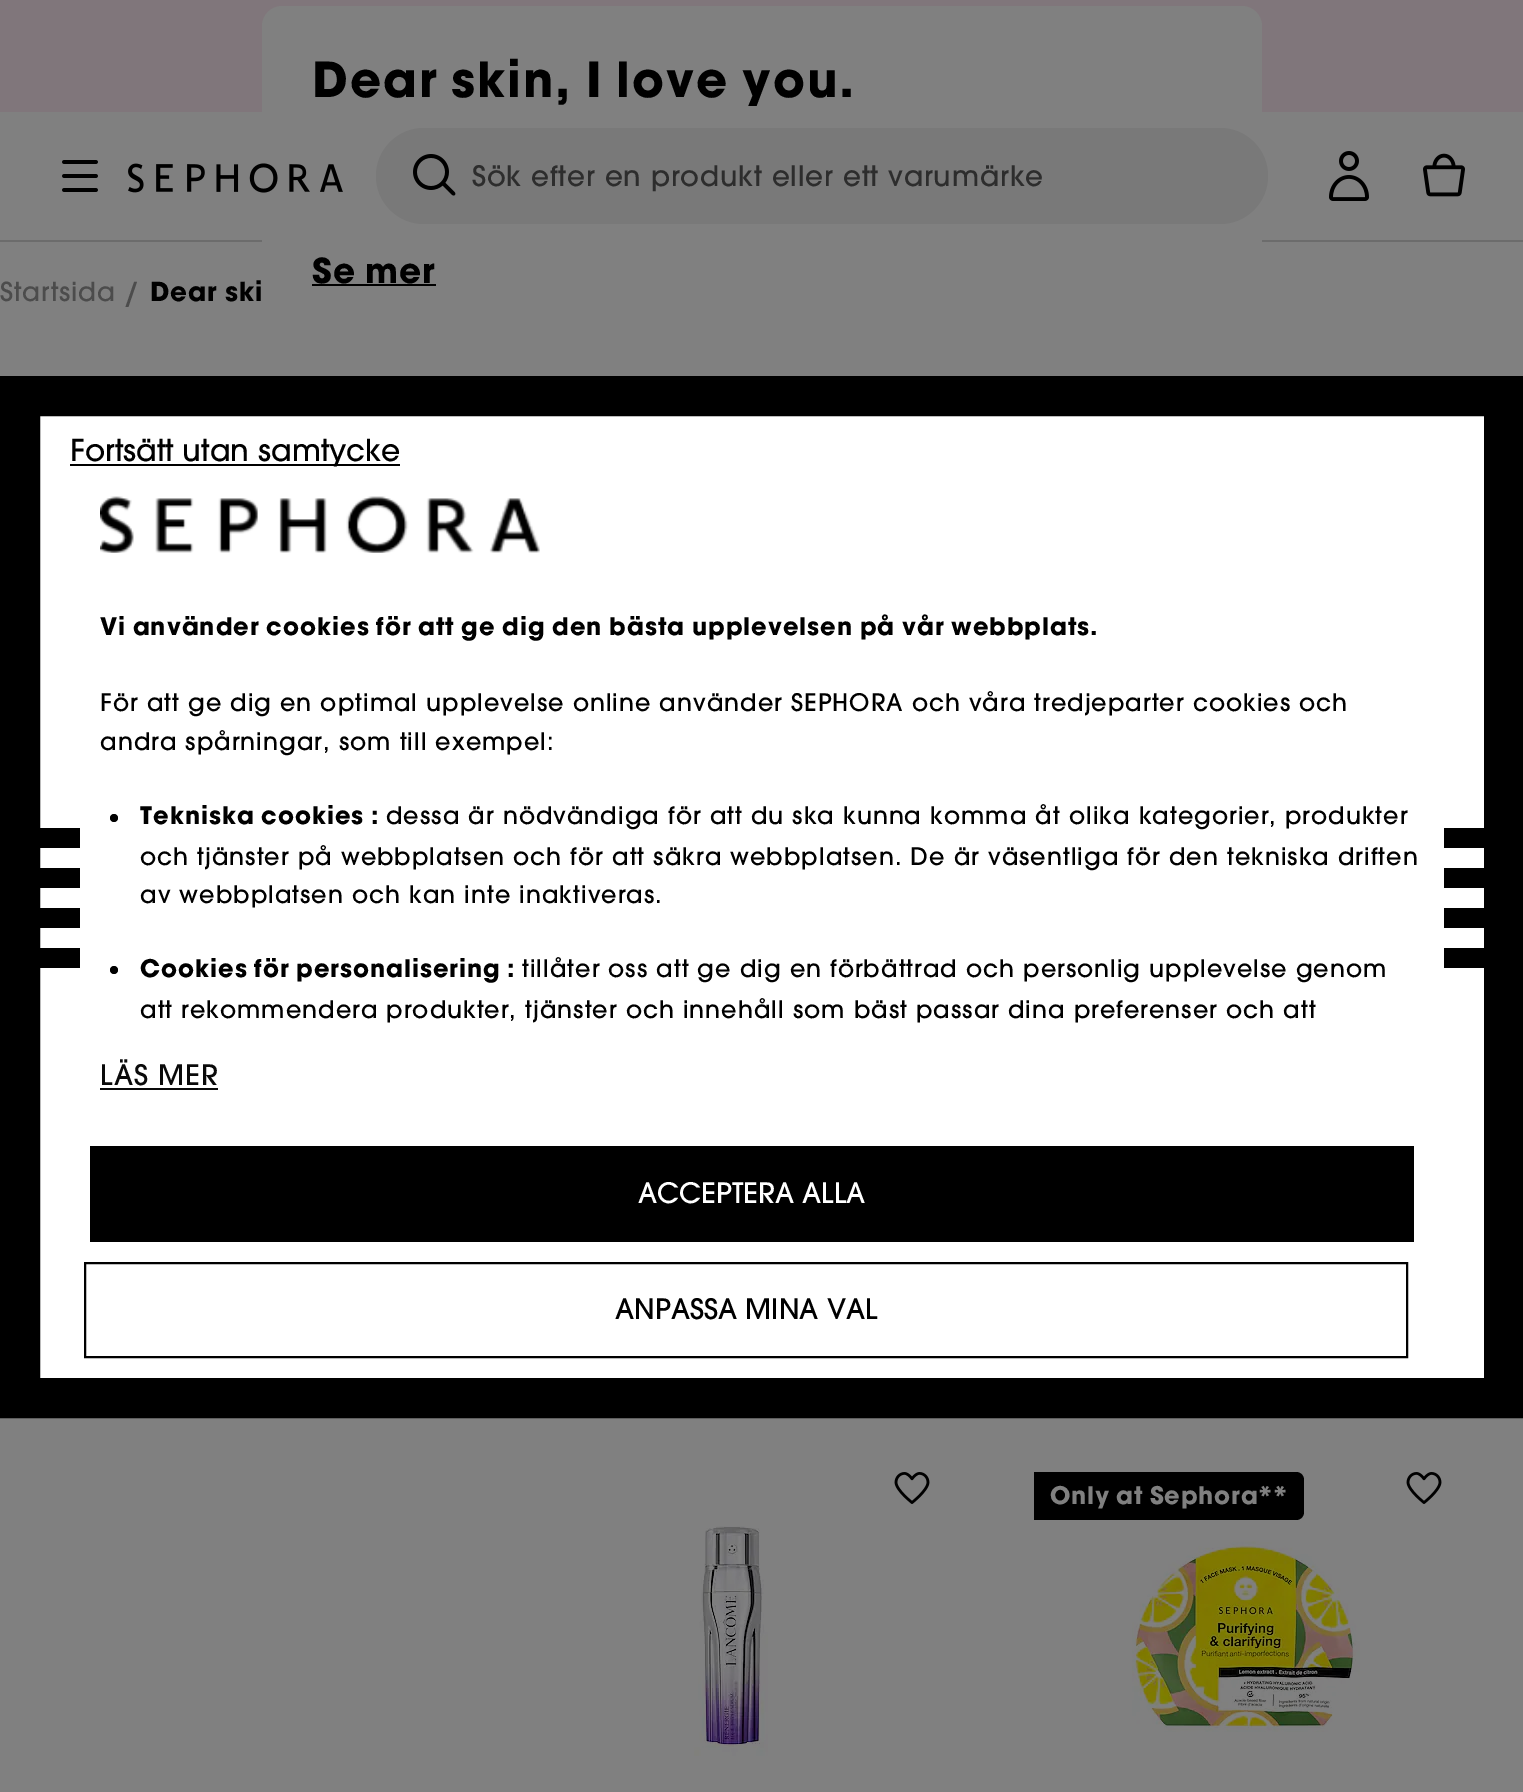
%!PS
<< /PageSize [1523 1792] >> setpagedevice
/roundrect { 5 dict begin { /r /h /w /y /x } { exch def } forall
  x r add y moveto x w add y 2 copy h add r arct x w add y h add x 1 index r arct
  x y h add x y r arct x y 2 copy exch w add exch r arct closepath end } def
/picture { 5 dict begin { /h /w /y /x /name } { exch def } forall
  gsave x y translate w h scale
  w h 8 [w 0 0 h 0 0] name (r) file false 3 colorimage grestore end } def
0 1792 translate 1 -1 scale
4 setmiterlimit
0.502 setgray
0 0 1523 1792 rectfill
/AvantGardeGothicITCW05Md-Medium [26 0 0 -26 0 0] selectfont
0.298 setgray
0 301 moveto 1 0 (Startsida) ashow
/AvantGardeGothicITCW05Md-Medium [30 0 0 -30 0 0] selectfont
124 304 moveto 1 0 (/) ashow
/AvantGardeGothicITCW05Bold-Bold [26 0 0 -26 0 0] selectfont
0 setgray
150 301 moveto 1 0 (Dear ski) ashow
0.424 setgray
0 240 1523 2 rectfill
0.502 0.463 0.482 setrgbcolor
0 0 1523 112 rectfill
0.502 setgray
262 6 1000 338 20 roundrect fill
/AvantGardeGothicITCW05Bold-Bold [48 0 0 -48 0 0] selectfont
0 setgray
312 97 moveto 2 0 (Dear skin, I love you.) ashow
/AvantGardeGothicITCW05Bold-Bold [34 0 0 -34 0 0] selectfont
312 283 moveto 1 0 (Se mer) ashow
312 284 124 2 rectfill
(img1.rgb) 894 1472 36 32 picture
(img2.rgb) 694 1526 74 230 picture
newpath 1034 1472 moveto 1296 1472 lineto 1300.5 1472 1304 1475.5 1304 1480 curveto 1304 1512 lineto 1304 1516.5 1300.5 1520 1296 1520 curveto 1034 1520 lineto closepath fill
/AvantGardeGothicITCW05Bold-Bold [24 0 0 -24 0 0] selectfont
0.502 setgray
1050 1504 moveto 0.8 0 (Only at Sephora**) ashow
(img1.rgb) 1406 1472 36 32 picture
(img3.rgb) 1132 1541 228 191 picture
(img4.rgb) 62 160 36 32 picture
(img5.rgb) 128 163 215 30 picture
0.475 setgray
376 128 892 96 48 roundrect fill
(img6.rgb) 413 154 43 42 picture
/AvantGardeGothicITCW05Md-Medium [28 0 0 -28 0 0] selectfont
0.176 setgray
472 186 moveto 0.8 0 (Sök efter en produkt eller ett varumärke) ashow
(img7.rgb) 1329 151 40 50 picture
(img8.rgb) 1423 153 42 44 picture
1 setgray
newpath 20 396 moveto 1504 396 lineto 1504 1398 lineto 20 1398 lineto closepath gsave fill grestore
0 setgray
40 setlinewidth
stroke
70 464 330 2 rectfill
/AvantGardeGothicITCW05Md-Medium [30 0 0 -30 0 0] selectfont
70 461 moveto (Fortsätt utan samtycke) show
/AvantGardeGothicITCW05Md-Medium [28 0 0 -28 0 0] selectfont
0.039 setgray
100 1085 moveto 1 0 (LÄS MER) ashow
100 1088 118 2 rectfill
0 setgray
90 1146 1324 96 rectfill
1 setgray
638 1203 moveto (ACCEPTERA ALLA) show
0 setgray
2 setlinewidth
85 1263 1322 94 rectstroke
615 1319 moveto (ANPASSA MINA VAL) show
40 828 40 20 rectfill
40 868 40 20 rectfill
40 908 40 20 rectfill
40 948 40 20 rectfill
(img9.rgb) 100 496 440 57 picture
/AvantGardeGothicITCW05Bold-Bold [24 0 0 -24 0 0] selectfont
100 635 moveto 1 0 (Vi använder cookies för att ge dig den bästa upplevelsen på vår webbplats.) ashow
/AvantGardeGothicITCW05Md-Medium [24 0 0 -24 0 0] selectfont
100 711 moveto 1 0 (För att ge dig en optimal upplevelse online använder SEPHORA och våra tredjeparter cookies och) ashow
100 750 moveto 1 0 (andra spårningar, som till exempel:) ashow
newpath 114 818 4 0 360 arc closepath fill
/AvantGardeGothicITCW05Bold-Bold [24 0 0 -24 0 0] selectfont
140 824 moveto 1 0 (Tekniska cookies :) ashow
/AvantGardeGothicITCW05Md-Medium [24 0 0 -24 0 0] selectfont
386 824 moveto 1 0 (dessa är nödvändiga för att du ska kunna komma åt olika kategorier, produkter) ashow
140 865 moveto 1 0 (och tjänster på webbplatsen och för att säkra webbplatsen. De är väsentliga för den tekniska driften) ashow
140 903 moveto 1 0 (av webbplatsen och kan inte inaktiveras.) ashow
newpath 114 970 4 0 360 arc closepath fill
/AvantGardeGothicITCW05Bold-Bold [24 0 0 -24 0 0] selectfont
140 977 moveto 1 0 (Cookies för personalisering :) ashow
/AvantGardeGothicITCW05Md-Medium [24 0 0 -24 0 0] selectfont
522 977 moveto 1 0 (tillåter oss att ge dig en förbättrad och personlig upplevelse genom) ashow
140 1018 moveto 1 0 (att rekommendera produkter, tjänster och innehåll som bäst passar dina preferenser och att) ashow
1444 828 40 20 rectfill
1444 868 40 20 rectfill
1444 908 40 20 rectfill
1444 948 40 20 rectfill
showpage
